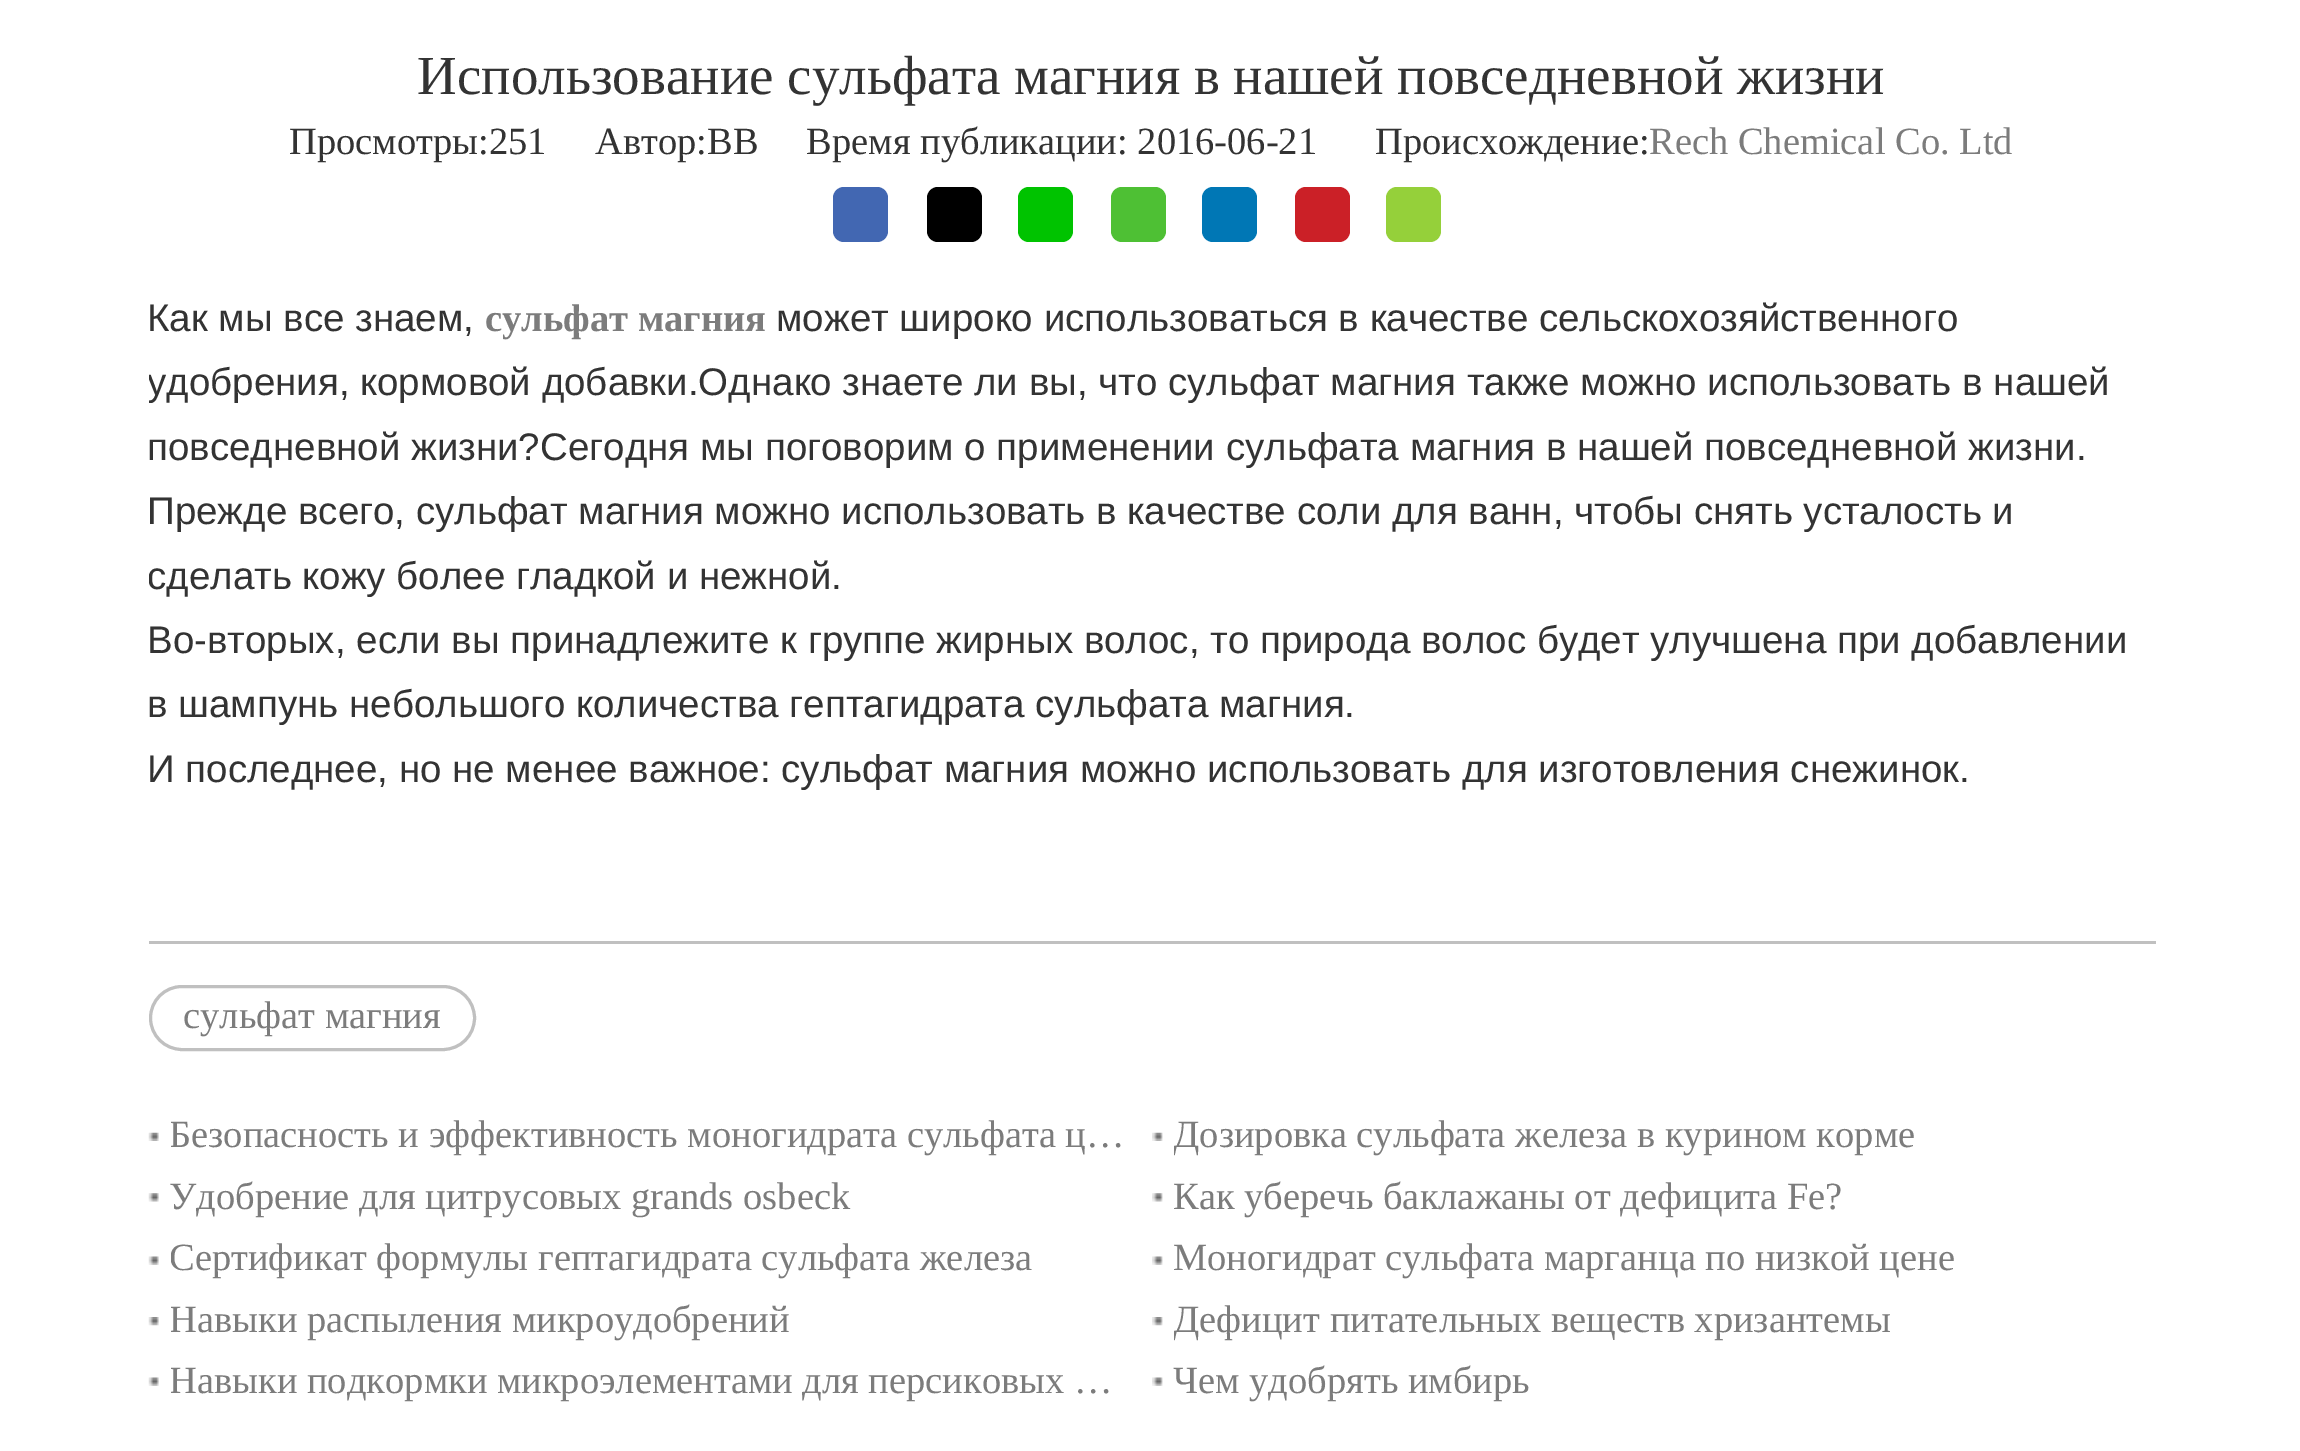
%!PS
<< /PageSize [2300 1451] >> setpagedevice
/roundrect { 5 dict begin { /r /h /w /y /x } { exch def } forall
  x r add y moveto x w add y 2 copy h add r arct x w add y h add x 1 index r arct
  x y h add x y r arct x y 2 copy exch w add exch r arct closepath end } def
/picture { 5 dict begin { /h /w /y /x /name } { exch def } forall
  gsave x y translate w h scale
  w h 8 [w 0 0 h 0 0] name (r) file false 3 colorimage grestore end } def
0 1451 translate 1 -1 scale
4 setmiterlimit
1 setgray
0 0 2300 1451 rectfill
/LiberationSerif-Regular [55 0 0 -55 0 0] selectfont
0.2 setgray
417 94 moveto (Использование сульфата магния в нашей повседневной жизни) show
/LiberationSerif-Regular [38.5 0 0 -38.5 0 0] selectfont
289 154 moveto (Просмотры:251) show
595 154 moveto (Автор:ВВ     Время публикации: 2016-06-21      Происхождение:) show
0.486 setgray
1649 154 moveto (Rech Chemical Co. Ltd) show
0.259 0.404 0.698 setrgbcolor
833 187 55 55 11 roundrect fill
0 setgray
927 187 55 55 11 roundrect fill
0 0.765 0 setrgbcolor
1018 187 55 55 11 roundrect fill
0.306 0.753 0.204 setrgbcolor
1111 187 55 55 11 roundrect fill
0 0.467 0.71 setrgbcolor
1202 187 55 55 11 roundrect fill
0.796 0.125 0.153 setrgbcolor
1295 187 55 55 11 roundrect fill
0.584 0.816 0.227 setrgbcolor
1386 187 55 55 11 roundrect fill
/LiberationSans-Regular [38.5 0 0 -38.5 0 0] selectfont
0.2 setgray
147 331 moveto (Как мы все знаем,) show
/LiberationSerif-Bold [38.5 0 0 -38.5 0 0] selectfont
0.486 setgray
485 331 moveto (сульфат магния) show
/LiberationSans-Regular [38.5 0 0 -38.5 0 0] selectfont
0.2 setgray
776 331 moveto (может широко использоваться в качестве сельскохозяйственного) show
gsave
149 36 2007 1042 rectclip
147 395 moveto (удобрения, кормовой добавки.Однако знаете ли вы, что сульфат магния также можно использовать в нашей) show
grestore
147 460 moveto (повседневной жизни?Сегодня мы поговорим о применении сульфата магния в нашей повседневной жизни.) show
147 524 moveto (Прежде всего, сульфат магния можно использовать в качестве соли для ванн, чтобы снять усталость и) show
gsave
149 36 2007 1042 rectclip
147 589 moveto (сделать кожу более гладкой и нежной.) show
grestore
147 653 moveto (Во-вторых, если вы принадлежите к группе жирных волос, то природа волос будет улучшена при добавлении) show
147 717 moveto (в шампунь небольшого количества гептагидрата сульфата магния.) show
147 782 moveto (И последнее, но не менее важное: сульфат магния можно использовать для изготовления снежинок.) show
0.753 setgray
149 941 2007 3 rectfill
3 setlinewidth
150.5 986.5 324 63 31.5 roundrect stroke
/LiberationSerif-Regular [38.5 0 0 -38.5 0 0] selectfont
0.486 setgray
183 1028 moveto (сульфат магния) show
(img1.rgb) 148 1132 11 9 picture
gsave
171 1106 959 60 rectclip
169 1147 moveto (Безопасность и эффективность моногидрата сульфата ц…) show
grestore
(img2.rgb) 1152 1132 11 9 picture
gsave
1174 1106 960 60 rectclip
1173 1147 moveto (Дозировка сульфата железа в курином корме) show
grestore
(img3.rgb) 148 1193 11 9 picture
169 1209 moveto (Удобрение для цитрусовых grands osbeck) show
(img4.rgb) 1152 1193 11 9 picture
1173 1209 moveto (Как уберечь баклажаны от дефицита Fe?) show
(img5.rgb) 148 1256 11 9 picture
gsave
171 1229 959 61 rectclip
169 1270 moveto (Сертификат формулы гептагидрата сульфата железа) show
grestore
(img6.rgb) 1152 1256 11 9 picture
1173 1270 moveto (Моногидрат сульфата марганца по низкой цене) show
(img7.rgb) 148 1317 11 9 picture
gsave
171 1290 959 63 rectclip
169 1332 moveto (Навыки распыления микроудобрений) show
grestore
(img8.rgb) 1152 1317 11 9 picture
gsave
1174 1290 960 63 rectclip
1173 1332 moveto (Дефицит питательных веществ хризантемы) show
grestore
(img5.rgb) 148 1377 11 9 picture
gsave
171 1353 959 61 rectclip
169 1393 moveto (Навыки подкормки микроэлементами для персиковых …) show
grestore
(img6.rgb) 1152 1377 11 9 picture
1173 1393 moveto (Чем удобрять имбирь) show
showpage
